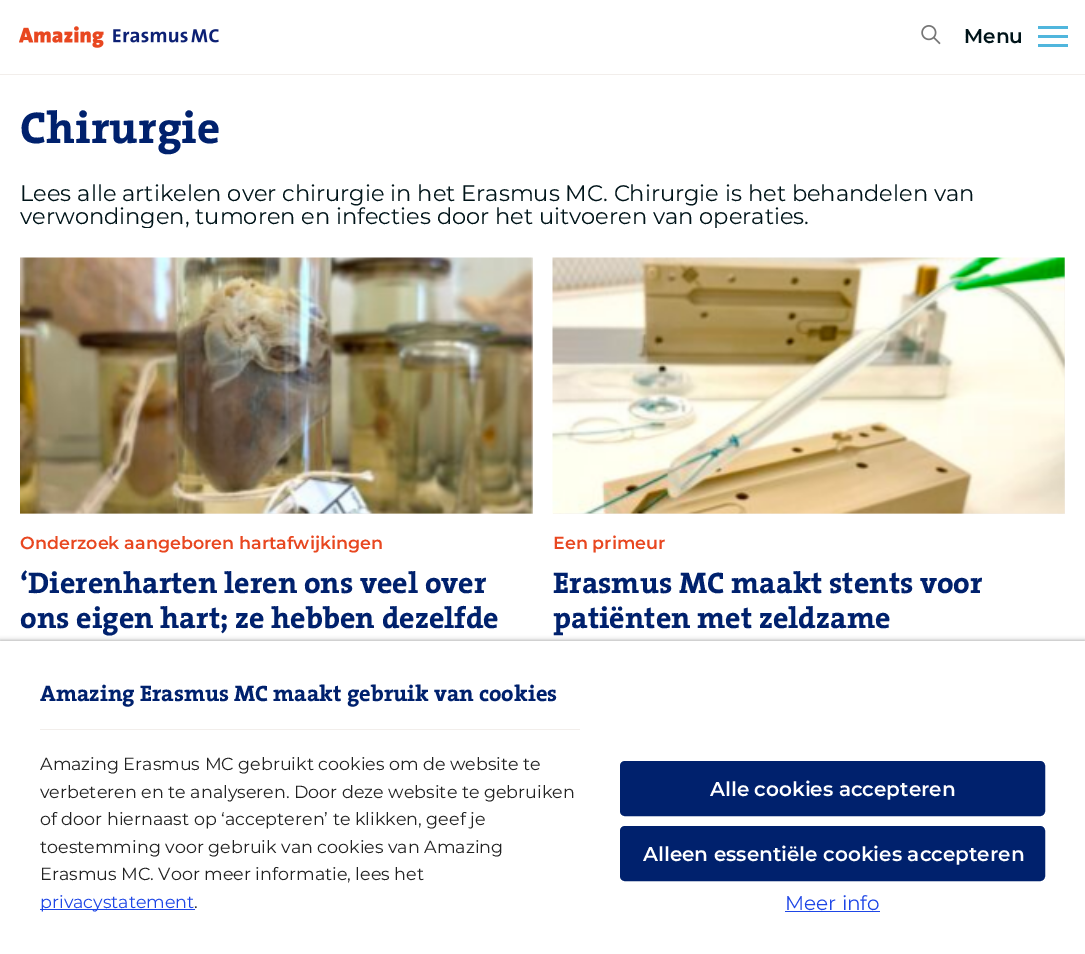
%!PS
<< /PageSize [1085 954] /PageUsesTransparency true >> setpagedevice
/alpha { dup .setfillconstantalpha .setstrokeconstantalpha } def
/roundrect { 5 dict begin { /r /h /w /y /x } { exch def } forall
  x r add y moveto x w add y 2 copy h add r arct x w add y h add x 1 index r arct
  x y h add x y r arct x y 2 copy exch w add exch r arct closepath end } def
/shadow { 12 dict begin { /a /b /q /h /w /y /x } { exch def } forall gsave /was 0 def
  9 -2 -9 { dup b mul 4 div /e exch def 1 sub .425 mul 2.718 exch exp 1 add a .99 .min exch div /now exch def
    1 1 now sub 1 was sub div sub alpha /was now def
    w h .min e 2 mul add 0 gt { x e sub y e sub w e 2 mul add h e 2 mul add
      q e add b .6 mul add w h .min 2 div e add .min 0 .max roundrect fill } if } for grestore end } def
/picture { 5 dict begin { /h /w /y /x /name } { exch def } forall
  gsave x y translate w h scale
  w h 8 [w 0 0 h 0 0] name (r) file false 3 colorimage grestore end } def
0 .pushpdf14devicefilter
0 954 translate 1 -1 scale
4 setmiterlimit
1 setgray
0 0 1085 954 rectfill
0.949 0.933 0.922 setrgbcolor
0 74 1085 1 rectfill
(img1.rgb) 19 26 200 22 picture
(img2.rgb) 921 25 20 20 picture
/Montserrat-SemiBold [20 0 0 -20 0 0] selectfont
0 0.078 0.098 setrgbcolor
964 43 moveto (Menu) show
0.314 0.714 0.867 setrgbcolor
1038 35 30 3 rectfill
1038 26 30 3 rectfill
1038 44 30 3 rectfill
/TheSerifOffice-Bold [45 0 0 -45 0 0] selectfont
0 0.129 0.427 setrgbcolor
20 143 moveto (Chirurgie) show
/Montserrat-Regular [22.5 0 0 -22.5 0 0] selectfont
0 0.078 0.098 setrgbcolor
20 201 moveto (Lees alle artikelen over chirurgie in het Erasmus MC. Chirurgie is het behandelen van) show
gsave
20 183 1045 45 rectclip
20 224 moveto (verwondingen, tumoren en infecties door het uitvoeren van operaties.) show
grestore
0.949 0.933 0.922 setrgbcolor
20 258 513 256 rectfill
(img3.rgb) 20 257 513 257 picture
/Montserrat-SemiBold [17.5 0 0 -17.5 0 0] selectfont
0.91 0.278 0.125 setrgbcolor
20 549 moveto (Onderzoek aangeboren hartafwijkingen) show
/TheSerifOffice-Bold [30 0 0 -30 0 0] selectfont
0 0.129 0.427 setrgbcolor
20 593 moveto (‘Dierenharten leren ons veel over) show
20 628 moveto (ons eigen hart; ze hebben dezelfde) show
0.949 0.933 0.922 setrgbcolor
553 258 512 256 rectfill
(img4.rgb) 552 257 513 257 picture
/Montserrat-SemiBold [17.5 0 0 -17.5 0 0] selectfont
0.91 0.278 0.125 setrgbcolor
553 549 moveto (Een primeur) show
/TheSerifOffice-Bold [30 0 0 -30 0 0] selectfont
0 0.129 0.427 setrgbcolor
553 593 moveto (Erasmus MC maakt stents voor) show
553 628 moveto (patiënten met zeldzame) show
0 setgray
0 641 1085 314 0 2.5 0.4 shadow
1 setgray
0 641 1085 313 rectfill
/TheSerifOffice-Bold [22.5 0 0 -22.5 0 0] selectfont
0 0.129 0.427 setrgbcolor
40 701 moveto (Amazing Erasmus MC maakt gebruik van cookies) show
0.949 0.933 0.922 setrgbcolor
40 729 540 1 rectfill
/Montserrat-Regular [17.5 0 0 -17.5 0 0] selectfont
0.133 setgray
40 770 moveto (Amazing Erasmus MC gebruikt cookies om de website te) show
40 798 moveto (verbeteren en te analyseren. Door deze website te gebruiken) show
40 825 moveto (of door hiernaast op ‘accepteren’ te klikken, geef je) show
40 853 moveto (toestemming voor gebruik van cookies van Amazing) show
40 880 moveto (Erasmus MC. Voor meer informatie, lees het) show
0.118 0.275 0.902 setrgbcolor
40 909 155 1 rectfill
40 908 moveto (privacystatement) show
0.133 setgray
194 908 moveto (.) show
0 0.129 0.427 setrgbcolor
621.5 762.5 422 52 3.5 roundrect gsave fill grestore
3 setlinewidth
stroke
/Montserrat-SemiBold [20 0 0 -20 0 0] selectfont
1 setgray
710 796 moveto (Alle cookies accepteren) show
0 0.129 0.427 setrgbcolor
621.5 827.5 422 52 3.5 roundrect gsave fill grestore
stroke
1 setgray
643 861 moveto (Alleen essentiële cookies accepteren) show
/Montserrat-Regular [20 0 0 -20 0 0] selectfont
0.118 0.275 0.902 setrgbcolor
785 910 moveto (Meer info) show
785 911 95 1 rectfill
.poppdf14devicefilter showpage
